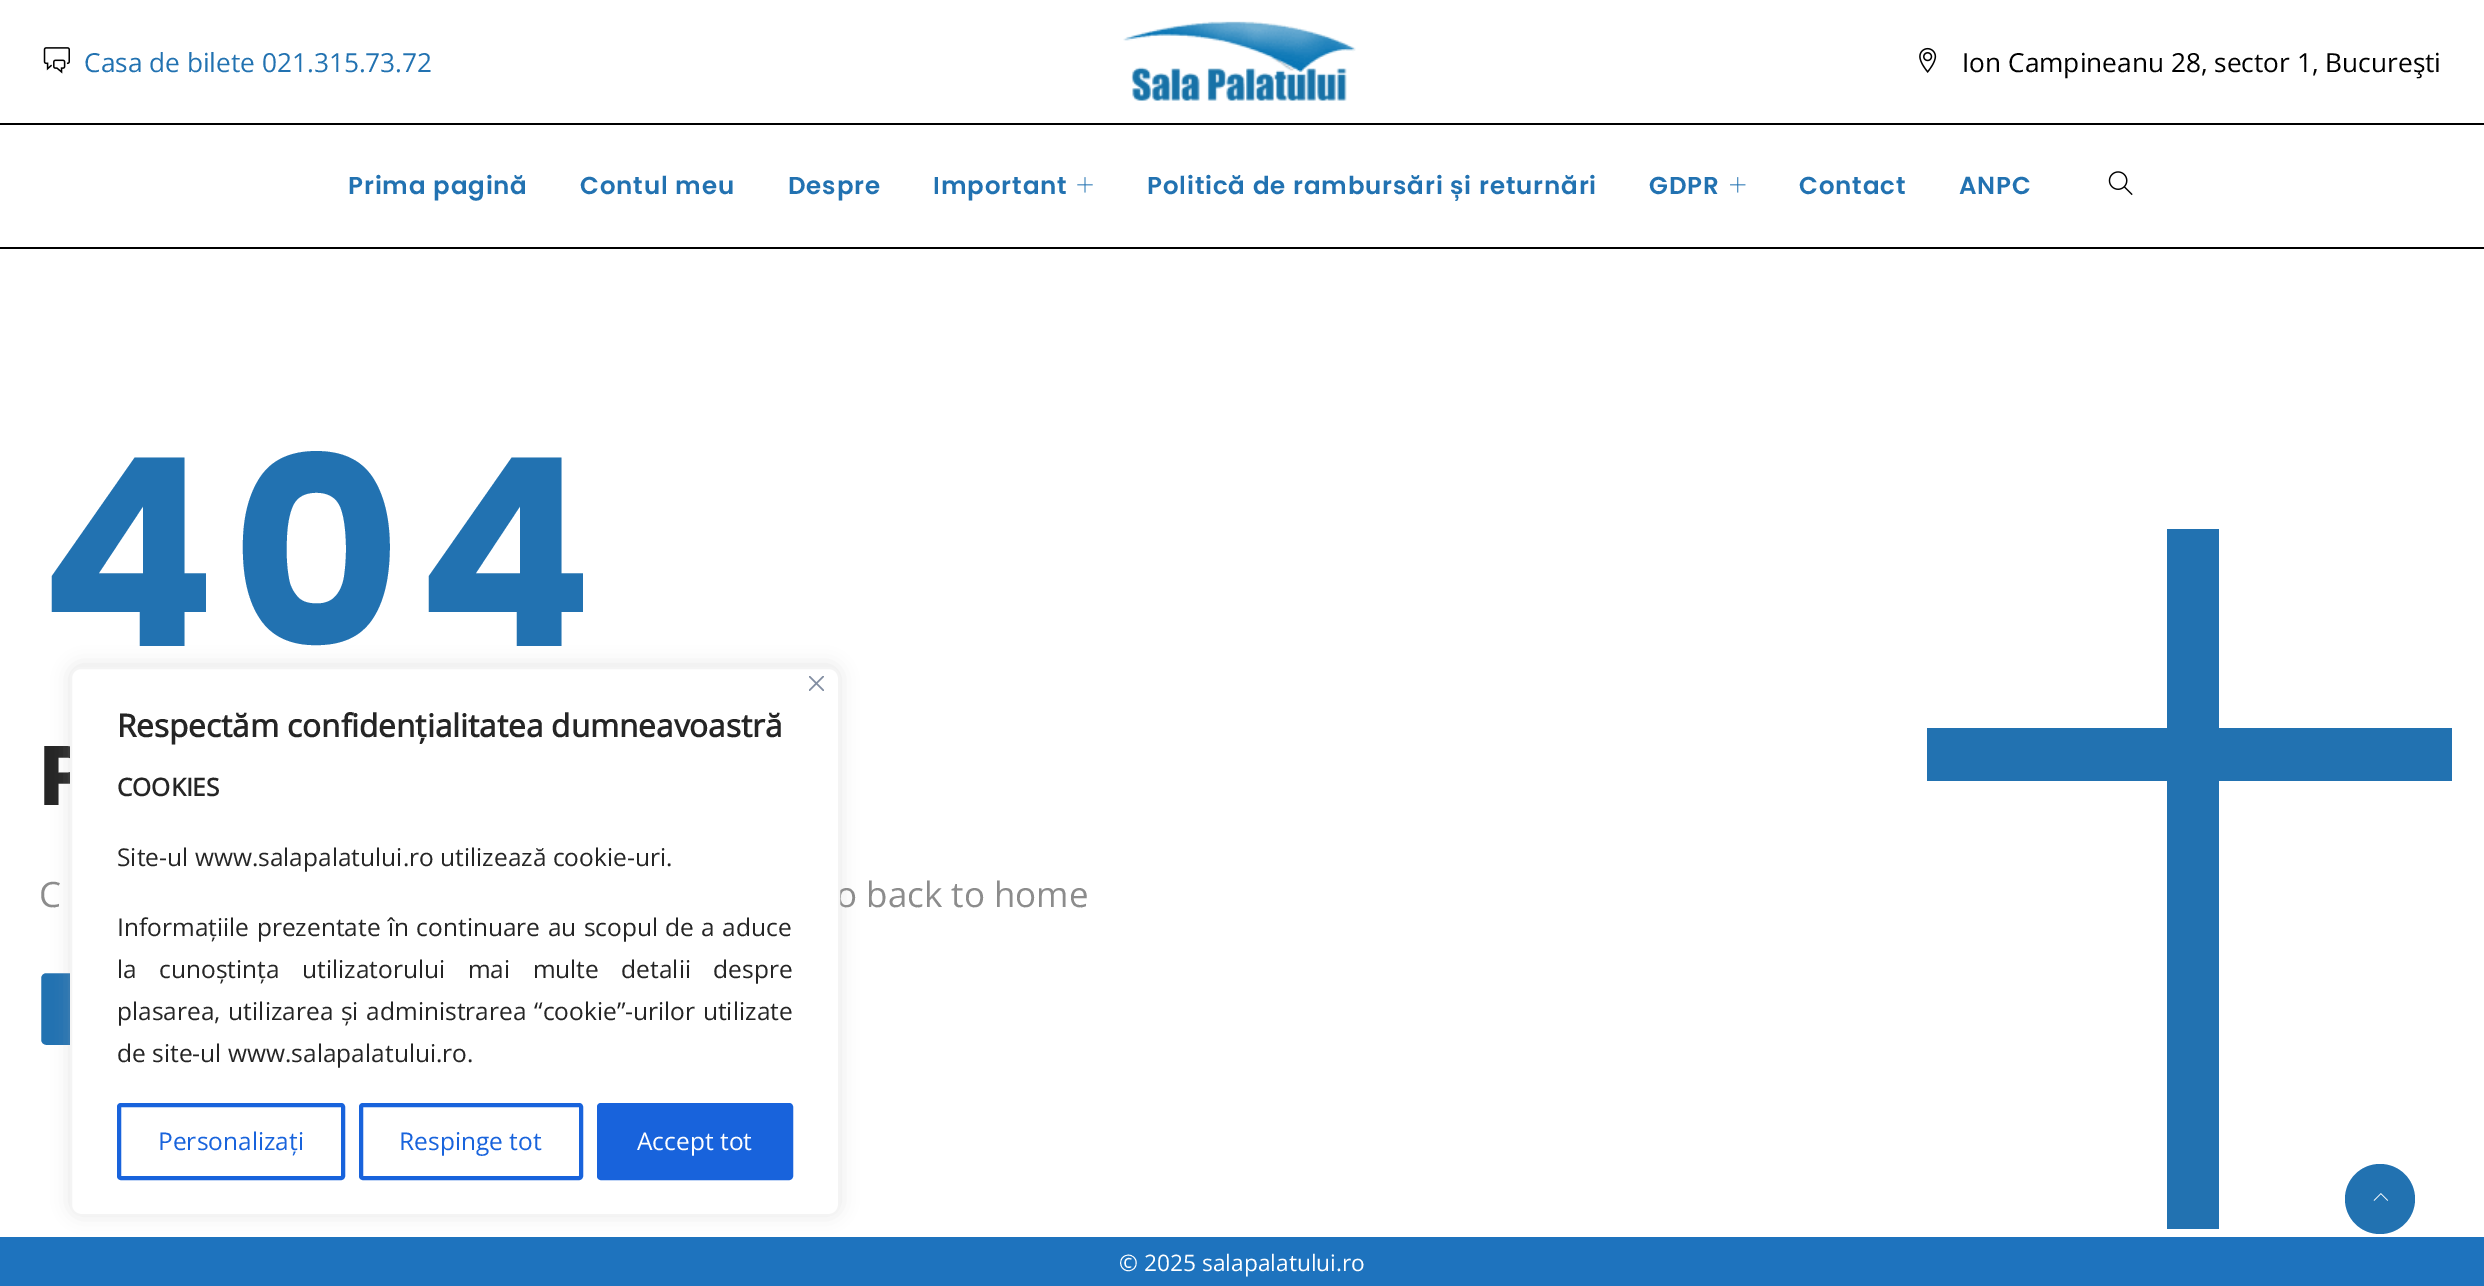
%!PS
<< /PageSize [2484 1286] /PageUsesTransparency true >> setpagedevice
/alpha { dup .setfillconstantalpha .setstrokeconstantalpha } def
/roundrect { 5 dict begin { /r /h /w /y /x } { exch def } forall
  x r add y moveto x w add y 2 copy h add r arct x w add y h add x 1 index r arct
  x y h add x y r arct x y 2 copy exch w add exch r arct closepath end } def
/shadow { 12 dict begin { /a /b /q /h /w /y /x } { exch def } forall gsave /was 0 def
  9 -2 -9 { dup b mul 4 div /e exch def 1 sub .425 mul 2.718 exch exp 1 add a .99 .min exch div /now exch def
    1 1 now sub 1 was sub div sub alpha /was now def
    w h .min e 2 mul add 0 gt { x e sub y e sub w e 2 mul add h e 2 mul add
      q e add b .6 mul add w h .min 2 div e add .min 0 .max roundrect fill } if } for grestore end } def
/picture { 5 dict begin { /h /w /y /x /name } { exch def } forall
  gsave x y translate w h scale
  w h 8 [w 0 0 h 0 0] name (r) file false 3 colorimage grestore end } def
0 .pushpdf14devicefilter
0 1286 translate 1 -1 scale
4 setmiterlimit
1 setgray
0 0 2484 1286 rectfill
(img1.rgb) 43 47 27 27 picture
/OpenSans-Regular [26.25 0 0 -26.25 0 0] selectfont
0.133 0.447 0.694 setrgbcolor
84 72 moveto (Casa de bilete 021.315.73.72) show
(img2.rgb) 1123 21 233 80 picture
(img3.rgb) 1919 47 18 26 picture
0 setgray
1962 72 moveto (Ion Campineanu 28, sector 1, Bucureşti) show
0 123 2484 2 rectfill
0 247 2484 2 rectfill
/Poppins-SemiBold [24.5 0 0 -24.5 0 0] selectfont
0.133 0.447 0.694 setrgbcolor
348 194 moveto 0.9 0 (Prima pagină) ashow
580 194 moveto 0.9 0 (Contul meu) ashow
788 194 moveto 0.9 0 (Despre) ashow
933 194 moveto 0.9 0 (Important) ashow
(img4.rgb) 1077 177 16 16 picture
1147 194 moveto 0.9 0 (Politică de rambursări și returnări) ashow
1649 194 moveto 0.9 0 (GDPR) ashow
(img5.rgb) 1730 177 16 16 picture
1799 194 moveto 0.9 0 (Contact) ashow
1959 194 moveto 0.9 0 (ANPC) ashow
(img6.rgb) 2108 171 25 25 picture
/Poppins-Bold [262.5 0 0 -262.5 0 0] selectfont
39 646 moveto 14 0 (404) ashow
2167 529 52 700 rectfill
/Poppins-Bold [84 0 0 -84 0 0] selectfont
0.145 setgray
39 805 moveto (P) show
0.133 0.447 0.694 setrgbcolor
1927 728 525 53 rectfill
/OpenSans-Regular [35 0 0 -35 0 0] selectfont
0.549 setgray
39 907 moveto (C) show
836 907 moveto (o back to home) show
0.133 0.447 0.694 setrgbcolor
40 972 211 74 6 roundrect gsave fill grestore
1 setgray
2 setlinewidth
stroke
0.133 0.447 0.694 setrgbcolor
newpath 2380 1199 35 0 360 arc closepath fill
(img7.rgb) 2373 1193 16 8 picture
0.118 0.451 0.745 setrgbcolor
0 1237 2484 49 rectfill
/OpenSans-Regular [22.75 0 0 -22.75 0 0] selectfont
1 setgray
1119 1271 moveto (© 2025 salapalatului.ro) show
0.675 0.671 0.671 setrgbcolor
70 665 770 550 11 9 0.3 shadow
1 setgray
71 668 768 547 10 roundrect gsave fill grestore
0.957 setgray
stroke
(img8.rgb) 809 676 15 15 picture
/OpenSans-Bold [31.5 0 0 -31.5 0 0] selectfont
0.145 setgray
117 737 moveto (Respectăm confidențialitatea dumneavoastră) show
/OpenSans-Bold [24.5 0 0 -24.5 0 0] selectfont
117 796 moveto (COOKIES) show
/OpenSans-Regular [24.5 0 0 -24.5 0 0] selectfont
117 866 moveto (Site-ul www.salapalatului.ro utilizează cookie-uri.) show
117 936 moveto 1 0 32 (Informațiile prezentate în continuare au scopul de a aduce) widthshow
117 978 moveto 16 0 32 (la cunoștința utilizatorului mai multe detalii despre) widthshow
117 1020 moveto 1.25 0 32 (plasarea, utilizarea și administrarea “cookie”-urilor utilizate) widthshow
117 1062 moveto (de site-ul www.salapalatului.ro.) show
0.094 0.388 0.863 setrgbcolor
4 setlinewidth
119 1105 224 73 2 roundrect stroke
158 1150 moveto (Personalizați) show
361 1105 220 73 2 roundrect stroke
399 1150 moveto (Respinge tot) show
599 1105 192 73 2 roundrect gsave fill grestore
stroke
1 setgray
637 1150 moveto (Accept tot) show
.poppdf14devicefilter showpage
